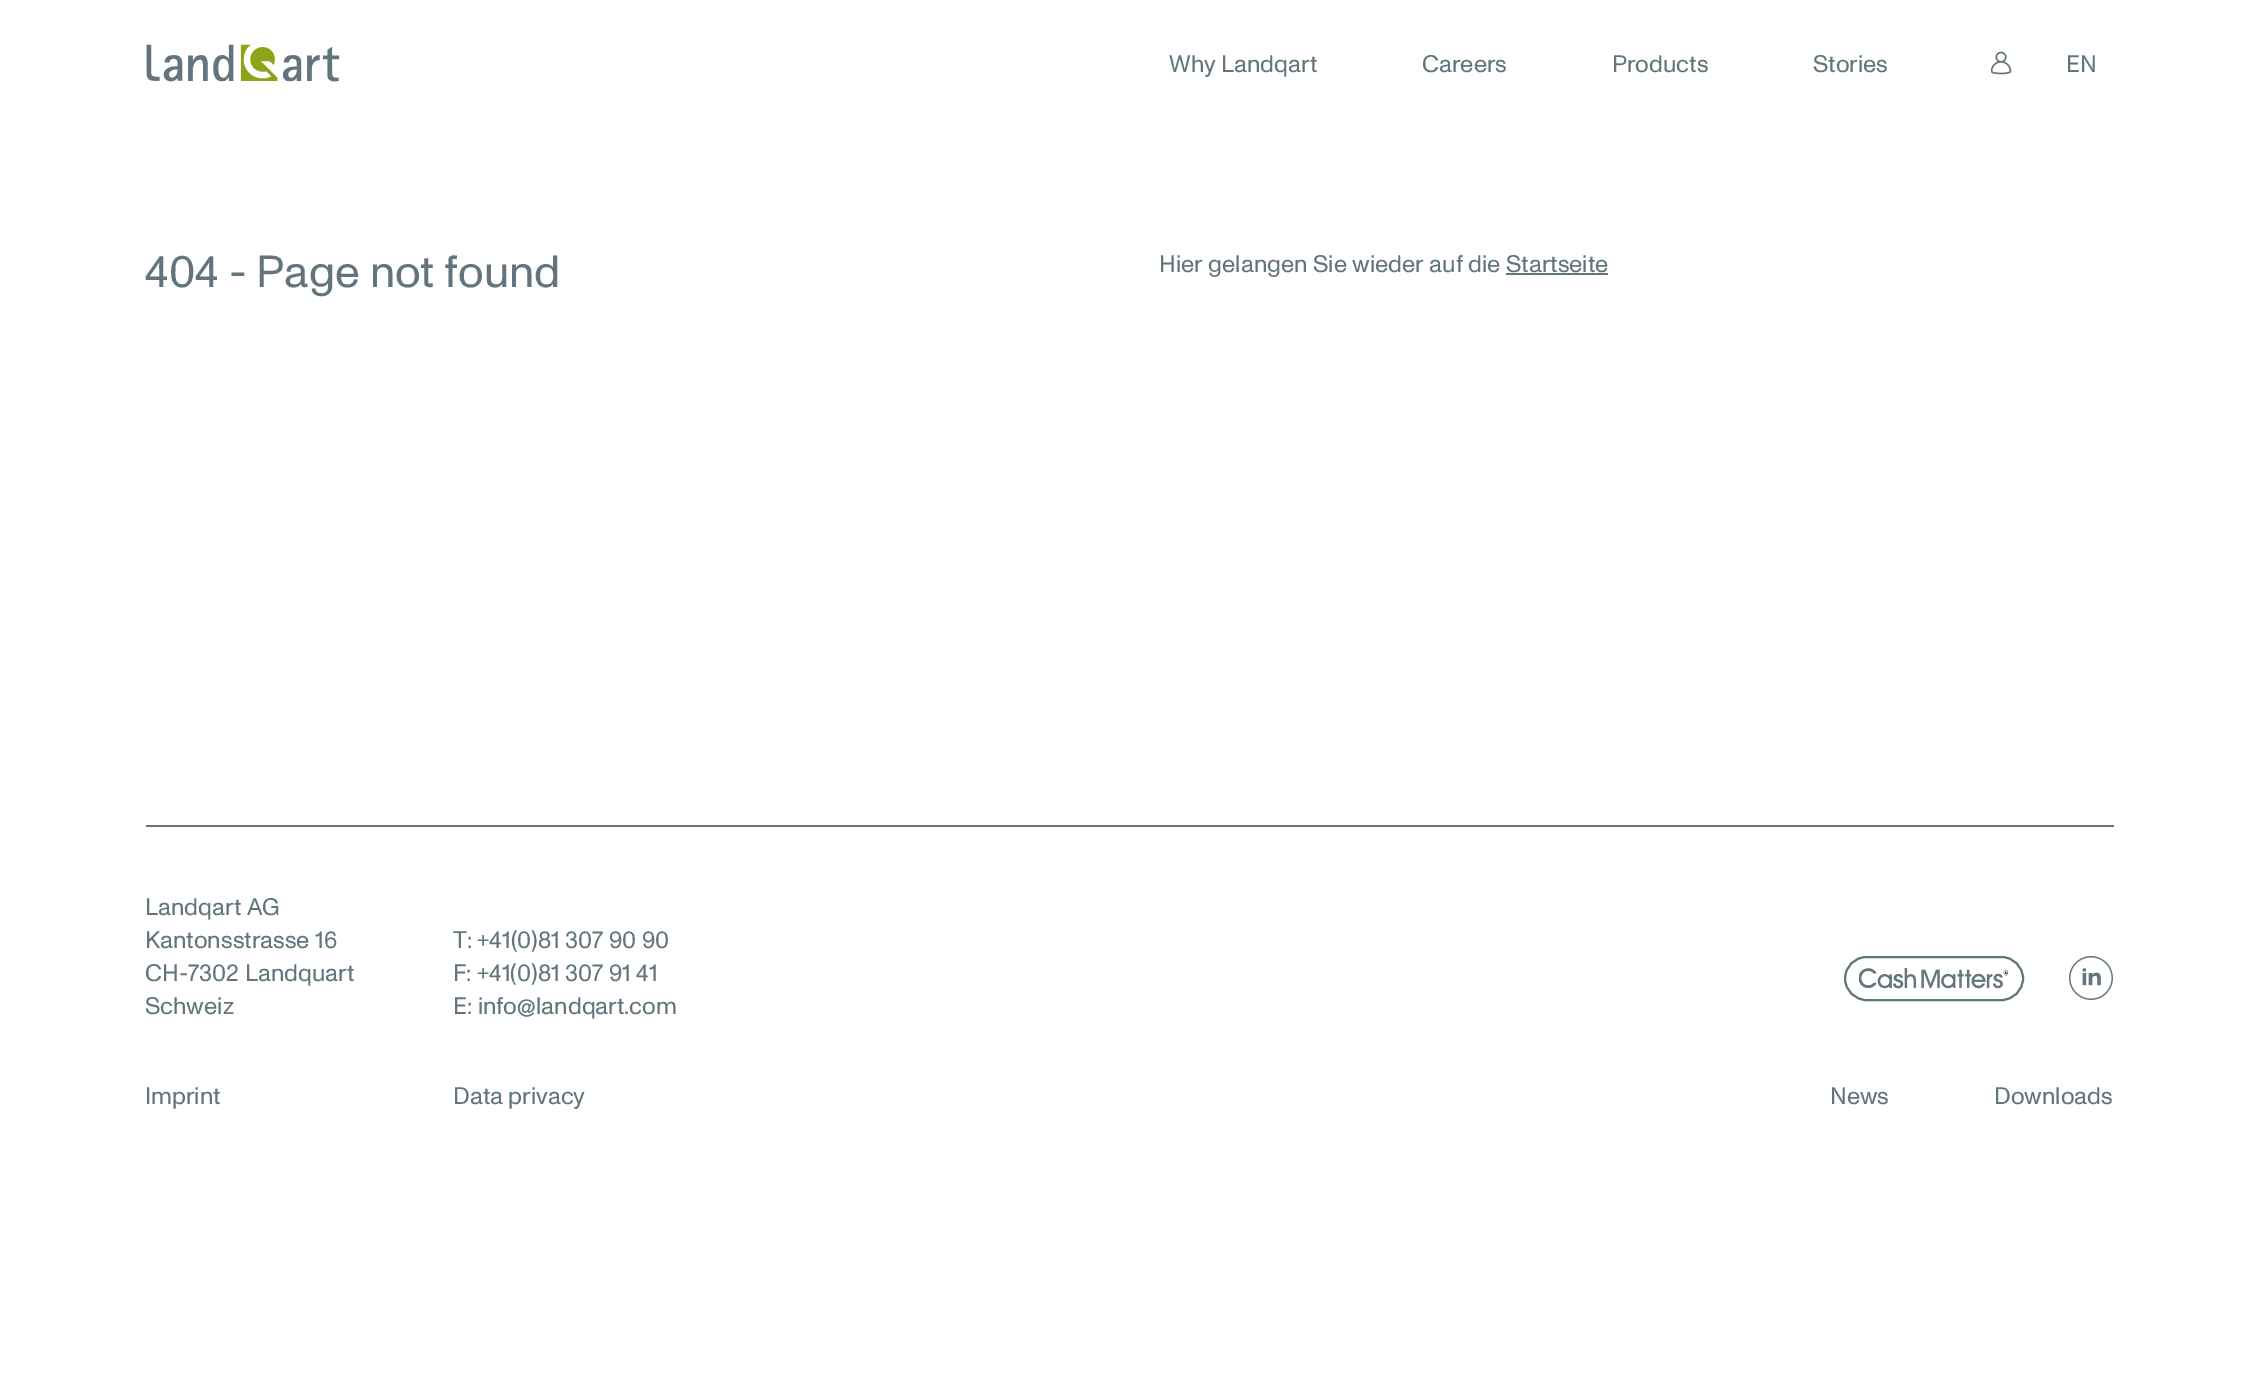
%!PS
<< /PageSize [2257 1397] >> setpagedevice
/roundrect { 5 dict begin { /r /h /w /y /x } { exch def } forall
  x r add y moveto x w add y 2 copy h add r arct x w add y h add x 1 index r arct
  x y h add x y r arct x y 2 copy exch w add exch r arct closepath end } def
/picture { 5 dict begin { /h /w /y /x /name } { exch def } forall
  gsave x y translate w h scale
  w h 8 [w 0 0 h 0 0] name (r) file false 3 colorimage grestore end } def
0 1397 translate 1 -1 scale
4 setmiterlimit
1 setgray
0 0 2257 1397 rectfill
(img1.rgb) 146 44 194 38 picture
/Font-Regular [24 0 0 -24 0 0] selectfont
0.384 0.459 0.49 setrgbcolor
1169 72 moveto (Why Landqart) show
1422 72 moveto (Careers) show
1612 72 moveto (Products) show
1813 72 moveto (Stories) show
(img2.rgb) 1991 51 21 24 picture
2066 72 moveto (EN) show
/Font-Regular [45 0 0 -45 0 0] selectfont
145 287 moveto (404 - Page not found) show
/Font-Regular [24 0 0 -24 0 0] selectfont
1159 272 moveto (Hier gelangen Sie wieder auf die Startseite) show
1506 273 102 2 rectfill
146 825 1968 2 rectfill
145 915 moveto (Landqart AG) show
145 948 moveto (Kantonsstrasse 16) show
145 981 moveto (CH-7302 Landquart) show
145 1014 moveto (Schweiz) show
453 948 moveto (T: +41\(0\)81 307 90 90) show
453 981 moveto (F: +41\(0\)81 307 91 41) show
453 1014 moveto (E: info@landqart.com) show
2 setlinewidth
1845 957 178 43 21.5 roundrect stroke
(img3.rgb) 1859 968 150 21 picture
(img4.rgb) 2069 956 44 44 picture
145 1104 moveto (Imprint) show
453 1104 moveto (Data privacy) show
1830 1104 moveto (News) show
1994 1104 moveto (Downloads) show
showpage
